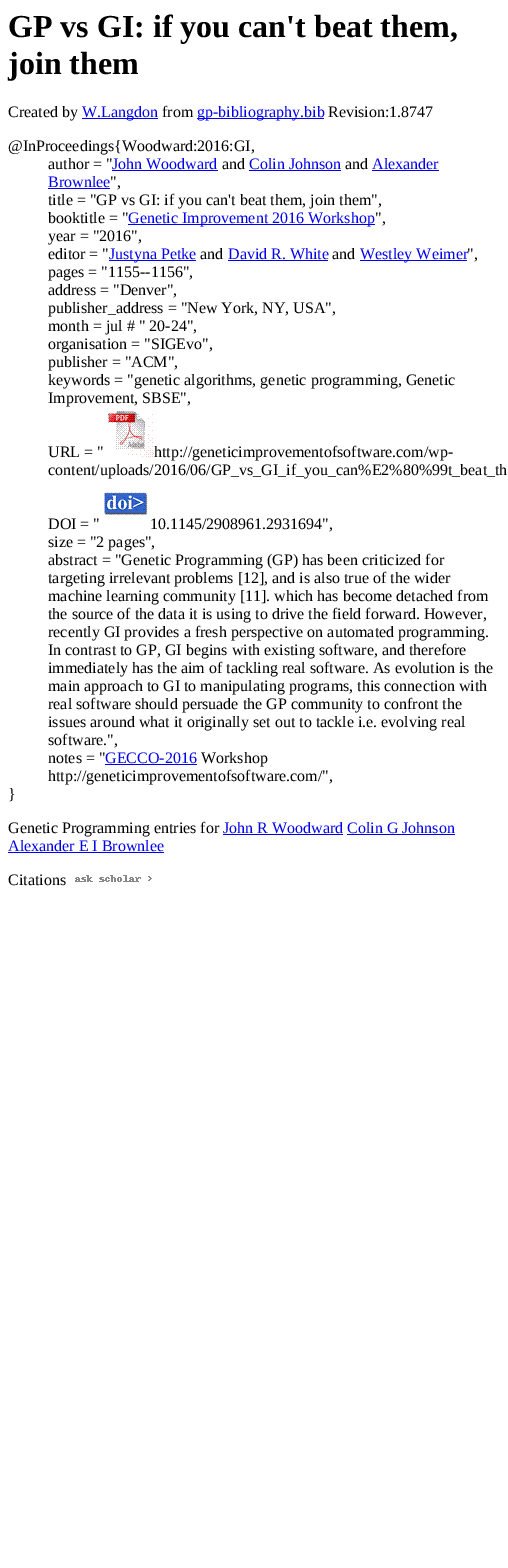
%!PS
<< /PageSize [508 1568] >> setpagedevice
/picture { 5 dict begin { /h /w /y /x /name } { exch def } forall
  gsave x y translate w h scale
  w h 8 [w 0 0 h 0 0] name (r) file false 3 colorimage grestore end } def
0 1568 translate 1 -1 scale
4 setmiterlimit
1 setgray
0 0 508 1568 rectfill
/LiberationSerif-Bold [32 0 0 -32 0 0] selectfont
0 setgray
8 37 moveto (GP vs GI: if you can't beat them,) show
8 74 moveto (join them) show
/LiberationSerif-Regular [16 0 0 -16 0 0] selectfont
8 117 moveto (Created by) show
0 0 0.933 setrgbcolor
82 118 76 1 rectfill
82 117 moveto (W.Langdon) show
0 setgray
162 117 moveto (from) show
0 0 0.933 setrgbcolor
197 118 127 1 rectfill
197 117 moveto (gp-bibliography.bib) show
0 setgray
328 117 moveto (Revision:1.8747) show
8 151 moveto (@InProceedings{Woodward:2016:GI,) show
48 169 moveto (author = ") show
0 0 0.933 setrgbcolor
112 169 moveto (John Woodward) show
112 170 106 1 rectfill
0 setgray
222 169 moveto (and) show
0 0 0.933 setrgbcolor
249 169 moveto (Colin Johnson) show
249 170 92 1 rectfill
0 setgray
345 169 moveto (and) show
0 0 0.933 setrgbcolor
372 169 moveto (Alexander) show
372 170 67 1 rectfill
48 187 moveto (Brownlee) show
48 188 62 1 rectfill
0 setgray
110 187 moveto (",) show
48 205 moveto (title = "GP vs GI: if you can't beat them, join them",) show
48 223 moveto (booktitle = ") show
0 0 0.933 setrgbcolor
128 224 247 1 rectfill
128 223 moveto (Genetic Improvement 2016 Workshop) show
0 setgray
375 223 moveto (",) show
48 241 moveto (year = "2016",) show
48 259 moveto (editor = ") show
0 0 0.933 setrgbcolor
109 260 87 1 rectfill
109 259 moveto (Justyna Petke) show
0 setgray
200 259 moveto (and) show
0 0 0.933 setrgbcolor
228 259 moveto (David R. White) show
228 260 100 1 rectfill
0 setgray
332 259 moveto (and) show
0 0 0.933 setrgbcolor
360 260 107 1 rectfill
360 259 moveto (Westley Weimer) show
0 setgray
467 259 moveto (",) show
48 277 moveto (pages = "1155--1156",) show
48 295 moveto (address = "Denver",) show
48 313 moveto (publisher_address = "New York, NY, USA",) show
48 331 moveto (month = jul # " 20-24",) show
48 349 moveto (organisation = "SIGEvo",) show
48 367 moveto (publisher = "ACM",) show
48 385 moveto (keywords = "genetic algorithms, genetic programming, Genetic) show
48 403 moveto (Improvement, SBSE",) show
48 457 moveto (URL = ") show
(img1.rgb) 108 411 46 46 picture
154 457 moveto (http://geneticimprovementofsoftware.com/wp-) show
48 475 moveto (content/uploads/2016/06/GP_vs_GI_if_you_can%E2%80%99t_beat_th) show
(img2.rgb) 104 492 44 23 picture
48 529 moveto (DOI = ") show
150 529 moveto (10.1145/2908961.2931694",) show
48 547 moveto (size = "2 pages",) show
48 565 moveto (abstract = "Genetic Programming \(GP\) has been criticized for) show
48 583 moveto (targeting irrelevant problems [12], and is also true of the wider) show
48 601 moveto (machine learning community [11]. which has become detached from) show
48 619 moveto (the source of the data it is using to drive the field forward. However,) show
48 637 moveto (recently GI provides a fresh perspective on automated programming.) show
48 655 moveto (In contrast to GP, GI begins with existing software, and therefore) show
48 673 moveto (immediately has the aim of tackling real software. As evolution is the) show
48 691 moveto (main approach to GI to manipulating programs, this connection with) show
48 709 moveto (real software should persuade the GP community to confront the) show
48 727 moveto (issues around what it originally set out to tackle i.e. evolving real) show
48 745 moveto (software.",) show
48 763 moveto (notes = ") show
0 0 0.933 setrgbcolor
105 763 moveto (GECCO-2016) show
105 764 92 1 rectfill
0 setgray
201 763 moveto (Workshop) show
48 781 moveto (http://geneticimprovementofsoftware.com/",) show
8 799 moveto (}) show
8 833 moveto (Genetic Programming entries for) show
0 0 0.933 setrgbcolor
223 833 moveto (John R Woodward Colin G Johnson) show
223 834 120 1 rectfill
347 834 108 1 rectfill
8 851 moveto (Alexander E I Brownlee) show
8 852 156 1 rectfill
0 setgray
8 885 moveto (Citations) show
(img3.rgb) 75 875 77 7 picture
showpage
